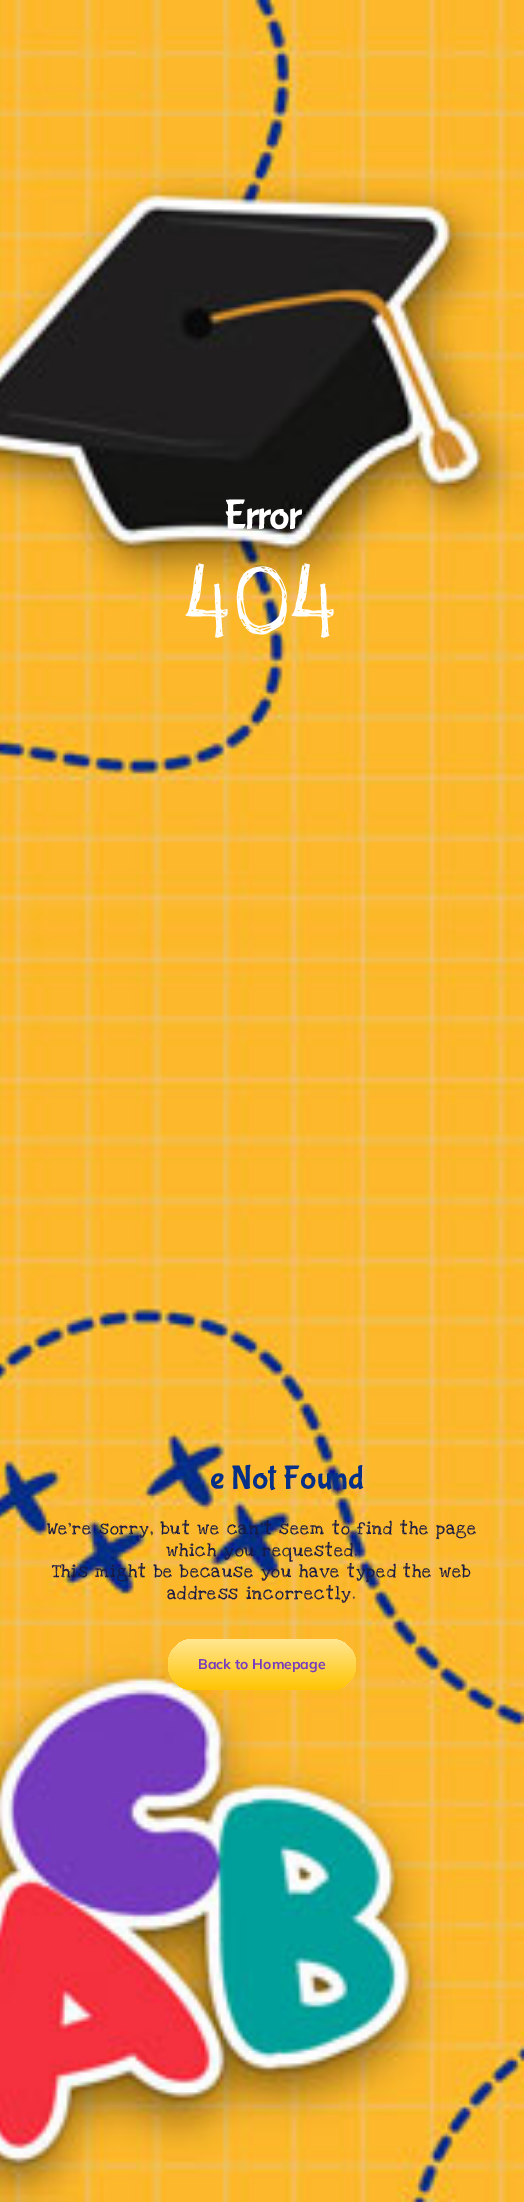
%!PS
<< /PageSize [524 2202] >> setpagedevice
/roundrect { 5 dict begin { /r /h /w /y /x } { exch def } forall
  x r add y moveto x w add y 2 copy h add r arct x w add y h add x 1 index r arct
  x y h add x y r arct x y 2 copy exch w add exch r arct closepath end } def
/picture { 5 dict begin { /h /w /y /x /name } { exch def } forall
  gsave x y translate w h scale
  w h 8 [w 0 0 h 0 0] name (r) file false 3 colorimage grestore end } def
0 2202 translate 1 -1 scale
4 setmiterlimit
1 setgray
0 0 524 2202 rectfill
(img1.rgb) 0 0 524 2202 picture
/BubblegumSans-Regular [43 0 0 -43 0 0] selectfont
224 528 moveto -2 0 (Error) ashow
/LoveYaLikeASister-Regular [100 0 0 -100 0 0] selectfont
185 633 moveto 1 0 (404) ashow
/BubblegumSans-Regular [34 0 0 -34 0 0] selectfont
0.024 0.184 0.529 setrgbcolor
210 1488 moveto (e Not Found) show
/LoveYaLikeASister-Regular [18 0 0 -18 0 0] selectfont
0.09 0.098 0.267 setrgbcolor
47 1534 moveto 1 0 (We’re sorry, but we can’t seem to find the page) ashow
166 1556 moveto 1 0 (which you requested.) ashow
52 1577 moveto 1 0 (This might be because you have typed the web) ashow
167 1599 moveto 1 0 (address incorrectly.) ashow
gsave 168 1639 188 51 25.5 roundrect clip newpath
<< /ShadingType 2 /ColorSpace /DeviceRGB /Coords [262 1639 262 1690] /Extend [true true] /Function << /FunctionType 2 /Domain [0 1] /C0 [1 0.902 0.573] /C1 [1 0.773 0.012] /N 1 >> >> shfill grestore
/Mulish-Bold [14 0 0 -14 0 0] selectfont
0.459 0.235 0.745 setrgbcolor
198 1669 moveto (Back to Homepage) show
showpage
